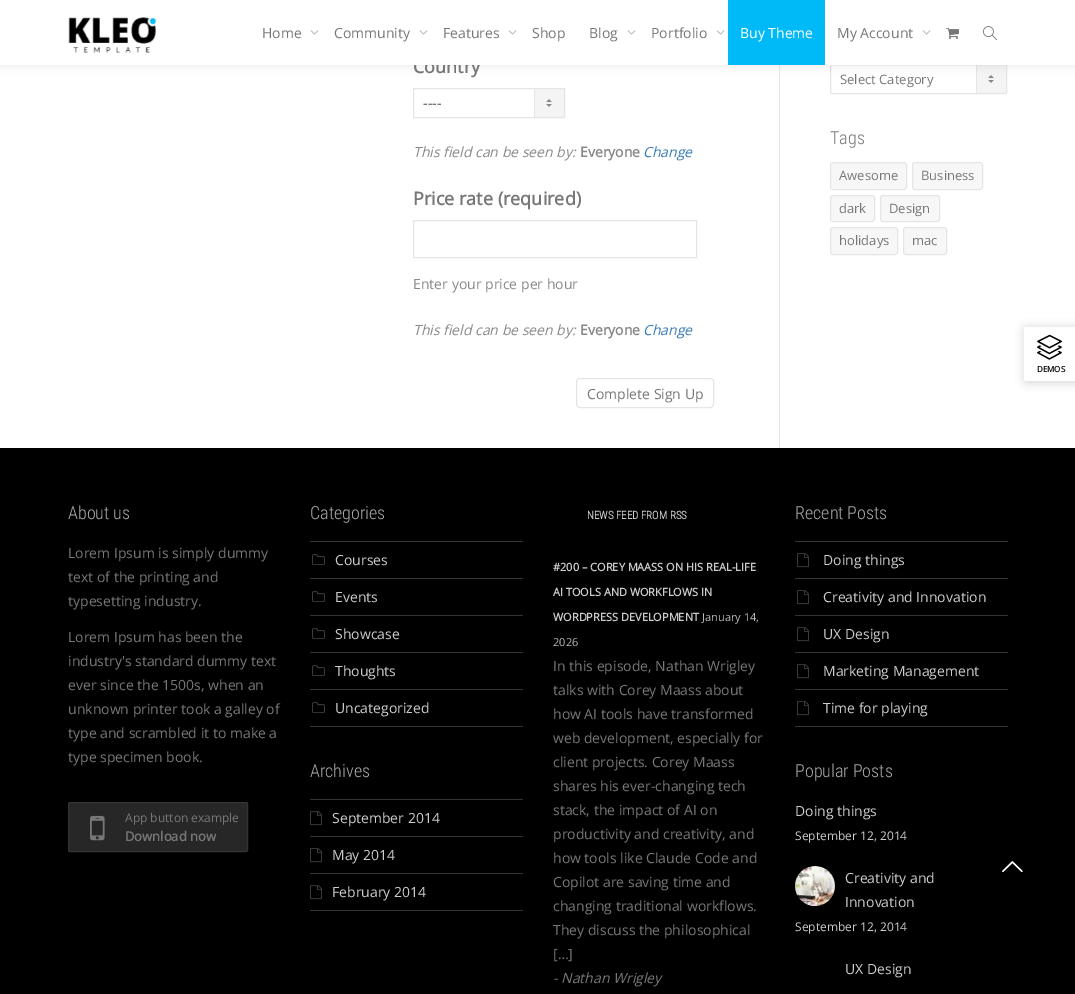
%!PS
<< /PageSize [1075 994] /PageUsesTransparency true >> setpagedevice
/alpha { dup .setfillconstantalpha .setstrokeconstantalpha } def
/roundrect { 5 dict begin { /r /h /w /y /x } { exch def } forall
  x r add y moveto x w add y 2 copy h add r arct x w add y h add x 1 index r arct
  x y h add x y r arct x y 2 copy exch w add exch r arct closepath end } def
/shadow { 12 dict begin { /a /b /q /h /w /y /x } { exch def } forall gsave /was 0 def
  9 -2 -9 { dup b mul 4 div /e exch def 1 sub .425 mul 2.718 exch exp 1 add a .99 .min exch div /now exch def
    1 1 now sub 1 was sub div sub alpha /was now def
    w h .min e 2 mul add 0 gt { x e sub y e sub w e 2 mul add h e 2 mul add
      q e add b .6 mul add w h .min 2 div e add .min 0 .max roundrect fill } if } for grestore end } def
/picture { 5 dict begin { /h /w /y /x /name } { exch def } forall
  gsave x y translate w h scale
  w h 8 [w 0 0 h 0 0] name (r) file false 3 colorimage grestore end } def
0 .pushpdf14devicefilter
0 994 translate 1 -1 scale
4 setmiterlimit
1 setgray
0 0 1075 994 rectfill
0.898 setgray
779 65 1 383 rectfill
(img6.rgb) 976 65 30 29 picture
830.5 64.5 176 29 1.5 roundrect stroke
0 setgray
0 0 1075 65 0 5 0.1 shadow
/OpenSans-Bold [18 0 0 -18 0 0] selectfont
0.467 setgray
413 73 moveto (Country) show
1 setgray
0 0 1075 65 rectfill
(img1.rgb) 68 17 88 36 picture
/OpenSans-Regular [14 0 0 -14 0 0] selectfont
0.467 setgray
262 38 moveto (Home) show
(img2.rgb) 310 30 9 5 picture
334 38 moveto (Community) show
(img2.rgb) 419 30 9 5 picture
443 38 moveto (Features) show
(img2.rgb) 508 30 9 5 picture
532 38 moveto (Shop) show
589 38 moveto (Blog) show
(img2.rgb) 627 30 9 5 picture
651 38 moveto (Portfolio) show
(img2.rgb) 716 30 9 5 picture
0 0.725 0.969 setrgbcolor
728 0 97 65 rectfill
1 setgray
740 38 moveto (Buy Theme) show
0.467 setgray
837 38 moveto (My Account) show
(img2.rgb) 922 30 9 5 picture
(img3.rgb) 946 28 13 11 picture
(img4.rgb) 983 26 14 14 picture
(img5.rgb) 534 89 30 28 picture
0.898 setgray
413.5 88.5 151 29 rectstroke
0.267 setgray
423 108 moveto (----) show
/OpenSans-Italic [14 0 0 -14 0 0] selectfont
0.533 setgray
413 157 moveto (This field can be seen by:) show
/OpenSans-Bold [14 0 0 -14 0 0] selectfont
580 157 moveto (Everyone) show
/OpenSans-Italic [14 0 0 -14 0 0] selectfont
0.212 0.482 0.718 setrgbcolor
643 157 moveto (Change) show
/OpenSans-Bold [18 0 0 -18 0 0] selectfont
0.467 setgray
413 205 moveto (Price rate \(required\)) show
0.898 setgray
413.5 220.5 283 37 rectstroke
/OpenSans-Regular [14 0 0 -14 0 0] selectfont
0.533 setgray
413 289 moveto (Enter your price per hour) show
/OpenSans-Italic [14 0 0 -14 0 0] selectfont
413 335 moveto (This field can be seen by:) show
/OpenSans-Bold [14 0 0 -14 0 0] selectfont
580 335 moveto (Everyone) show
/OpenSans-Italic [14 0 0 -14 0 0] selectfont
0.212 0.482 0.718 setrgbcolor
643 335 moveto (Change) show
0.898 setgray
576.5 378.5 137 29 3.5 roundrect stroke
/OpenSans-Regular [14 0 0 -14 0 0] selectfont
0.467 setgray
587 399 moveto (Complete Sign Up) show
/OpenSans-Regular [13 0 0 -13 0 0] selectfont
840 84 moveto (Select Category) show
/RobotoCondensed-Light [18 0 0 -18 0 0] selectfont
830 144 moveto (Tags) show
0.969 setgray
830.5 162.5 76 27 2.5 roundrect gsave fill grestore
0.898 setgray
stroke
/OpenSans-Regular [13 0 0 -13 0 0] selectfont
0.467 setgray
839 180 moveto (Awesome) show
0.969 setgray
912.5 162.5 70 27 2.5 roundrect gsave fill grestore
0.898 setgray
stroke
0.467 setgray
921 180 moveto (Business) show
0.969 setgray
830.5 195.5 44 26 2.5 roundrect gsave fill grestore
0.898 setgray
stroke
0.467 setgray
839 213 moveto (dark) show
0.969 setgray
880.5 195.5 59 26 2.5 roundrect gsave fill grestore
0.898 setgray
stroke
0.467 setgray
889 213 moveto (Design) show
0.969 setgray
830.5 227.5 67 27 2.5 roundrect gsave fill grestore
0.898 setgray
stroke
0.467 setgray
839 245 moveto (holidays) show
0.969 setgray
903.5 227.5 43 27 2.5 roundrect gsave fill grestore
0.898 setgray
stroke
0.467 setgray
912 245 moveto (mac) show
0 setgray
0 448 1075 546 rectfill
/RobotoCondensed-Light [18 0 0 -18 0 0] selectfont
0.667 setgray
68 519 moveto (About us) show
/OpenSans-Regular [14 0 0 -14 0 0] selectfont
0.467 setgray
68 558 moveto (Lorem Ipsum is simply dummy) show
68 582 moveto (text of the printing and) show
68 606 moveto (typesetting industry.) show
68 642 moveto (Lorem Ipsum has been the) show
68 666 moveto (industry's standard dummy text) show
68 690 moveto (ever since the 1500s, when an) show
68 714 moveto (unknown printer took a galley of) show
68 738 moveto (type and scrambled it to make a) show
68 762 moveto (type specimen book.) show
0.153 setgray
68.5 802.5 179 49 1.5 roundrect gsave fill grestore
0.2 setgray
stroke
(img7.rgb) 90 815 15 26 picture
/OpenSans-Regular [12 0 0 -12 0 0] selectfont
0.467 setgray
125 822 moveto (App button example) show
/OpenSans-Bold [13 0 0 -13 0 0] selectfont
125 841 moveto (Download now) show
/RobotoCondensed-Light [18 0 0 -18 0 0] selectfont
0.667 setgray
310 519 moveto (Categories) show
0.2 setgray
310 541 213 1 rectfill
310 578 213 1 rectfill
(img8.rgb) 312 554 13 11 picture
/OpenSans-Regular [14 0 0 -14 0 0] selectfont
0.8 setgray
335 565 moveto (Courses) show
0.2 setgray
310 615 213 1 rectfill
(img8.rgb) 312 591 13 11 picture
0.8 setgray
335 602 moveto (Events) show
0.2 setgray
310 652 213 1 rectfill
(img8.rgb) 312 628 13 11 picture
0.8 setgray
335 639 moveto (Showcase) show
0.2 setgray
310 689 213 1 rectfill
(img8.rgb) 312 665 13 11 picture
0.8 setgray
335 676 moveto (Thoughts) show
0.2 setgray
310 726 213 1 rectfill
(img8.rgb) 312 702 13 11 picture
0.8 setgray
335 713 moveto (Uncategorized) show
/RobotoCondensed-Light [18 0 0 -18 0 0] selectfont
0.667 setgray
310 777 moveto (Archives) show
0.2 setgray
310 799 213 1 rectfill
310 836 213 1 rectfill
(img9.rgb) 310 811 12 15 picture
/OpenSans-Regular [14 0 0 -14 0 0] selectfont
0.8 setgray
332 823 moveto (September 2014) show
0.2 setgray
310 873 213 1 rectfill
(img9.rgb) 310 848 12 15 picture
0.8 setgray
332 860 moveto (May 2014) show
0.2 setgray
310 910 213 1 rectfill
(img9.rgb) 310 885 12 15 picture
0.8 setgray
332 897 moveto (February 2014) show
/RobotoCondensed-Bold [11 0 0 -11 0 0] selectfont
587 519 moveto (NEWS FEED FROM RSS) show
/OpenSans-Bold [11 0 0 -11 0 0] selectfont
553 571 moveto (#200 – COREY MAASS ON HIS REAL-LIFE) show
553 596 moveto (AI TOOLS AND WORKFLOWS IN) show
553 621 moveto (WORDPRESS DEVELOPMENT) show
/OpenSans-Regular [11 0 0 -11 0 0] selectfont
0.733 setgray
702 621 moveto (January 14,) show
553 646 moveto (2026) show
/OpenSans-Regular [14 0 0 -14 0 0] selectfont
0.467 setgray
553 671 moveto (In this episode, Nathan Wrigley) show
553 695 moveto (talks with Corey Maass about) show
553 719 moveto (how AI tools have transformed) show
553 743 moveto (web development, especially for) show
553 767 moveto (client projects. Corey Maass) show
553 791 moveto (shares his ever-changing tech) show
553 815 moveto (stack, the impact of AI on) show
553 839 moveto (productivity and creativity, and) show
553 863 moveto (how tools like Claude Code and) show
553 887 moveto (Copilot are saving time and) show
553 911 moveto (changing traditional workflows.) show
553 935 moveto (They discuss the philosophical) show
553 959 moveto ([…]) show
/OpenSans-Italic [14 0 0 -14 0 0] selectfont
553 983 moveto (- Nathan Wrigley) show
/RobotoCondensed-Light [18 0 0 -18 0 0] selectfont
0.667 setgray
795 519 moveto (Recent Posts) show
0.2 setgray
795 541 213 1 rectfill
795 578 213 1 rectfill
(img9.rgb) 797 553 12 15 picture
/OpenSans-Regular [14 0 0 -14 0 0] selectfont
0.8 setgray
823 565 moveto (Doing things) show
0.2 setgray
795 615 213 1 rectfill
(img9.rgb) 797 590 12 15 picture
0.8 setgray
823 602 moveto (Creativity and Innovation) show
0.2 setgray
795 652 213 1 rectfill
(img9.rgb) 797 627 12 15 picture
0.8 setgray
823 639 moveto (UX Design) show
0.2 setgray
795 689 213 1 rectfill
(img9.rgb) 797 664 12 15 picture
0.8 setgray
823 676 moveto (Marketing Management) show
0.2 setgray
795 726 213 1 rectfill
(img9.rgb) 797 701 12 15 picture
0.8 setgray
823 713 moveto (Time for playing) show
/RobotoCondensed-Light [18 0 0 -18 0 0] selectfont
0.667 setgray
795 777 moveto (Popular Posts) show
/OpenSans-Regular [14 0 0 -14 0 0] selectfont
0.8 setgray
795 816 moveto (Doing things) show
/OpenSans-Regular [12 0 0 -12 0 0] selectfont
795 840 moveto (September 12, 2014) show
(img10.rgb) 795 866 40 40 picture
/OpenSans-Regular [14 0 0 -14 0 0] selectfont
845 883 moveto (Creativity and) show
845 907 moveto (Innovation) show
/OpenSans-Regular [12 0 0 -12 0 0] selectfont
795 931 moveto (September 12, 2014) show
/OpenSans-Regular [14 0 0 -14 0 0] selectfont
845 974 moveto (UX Design) show
(img11.rgb) 1002 861 21 12 picture
1025 328 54 54 2 5 1 shadow
1 setgray
newpath 1026 327 moveto 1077 327 lineto 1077 381 lineto 1026 381 lineto 1025 381 1024 380 1024 379 curveto 1024 329 lineto 1024 328 1025 327 1026 327 curveto closepath fill
(img12.rgb) 1037 334 25 26 picture
/OpenSans-Bold [8 0 0 -8 0 0] selectfont
0 setgray
1037 372 moveto (DEMOS) show
.poppdf14devicefilter showpage
